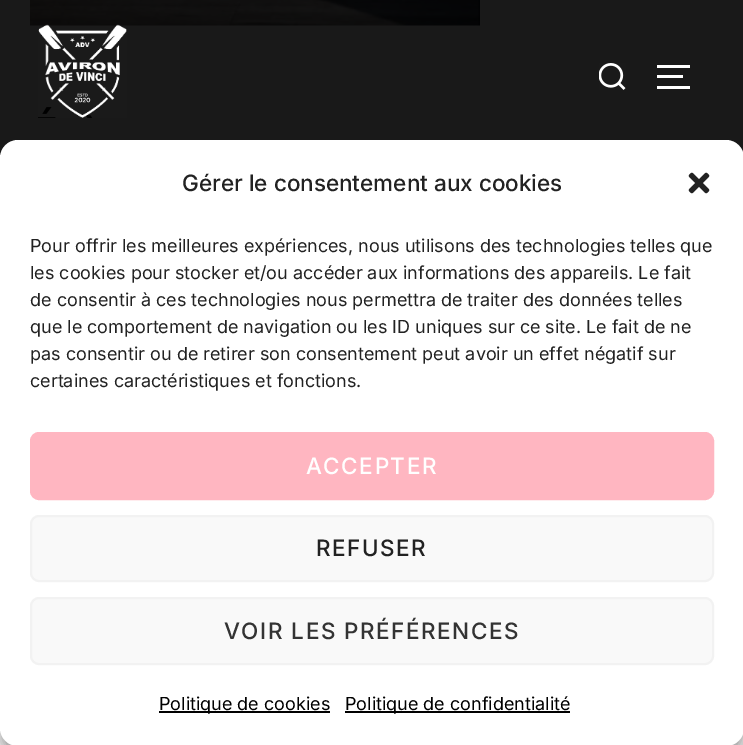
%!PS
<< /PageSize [743 745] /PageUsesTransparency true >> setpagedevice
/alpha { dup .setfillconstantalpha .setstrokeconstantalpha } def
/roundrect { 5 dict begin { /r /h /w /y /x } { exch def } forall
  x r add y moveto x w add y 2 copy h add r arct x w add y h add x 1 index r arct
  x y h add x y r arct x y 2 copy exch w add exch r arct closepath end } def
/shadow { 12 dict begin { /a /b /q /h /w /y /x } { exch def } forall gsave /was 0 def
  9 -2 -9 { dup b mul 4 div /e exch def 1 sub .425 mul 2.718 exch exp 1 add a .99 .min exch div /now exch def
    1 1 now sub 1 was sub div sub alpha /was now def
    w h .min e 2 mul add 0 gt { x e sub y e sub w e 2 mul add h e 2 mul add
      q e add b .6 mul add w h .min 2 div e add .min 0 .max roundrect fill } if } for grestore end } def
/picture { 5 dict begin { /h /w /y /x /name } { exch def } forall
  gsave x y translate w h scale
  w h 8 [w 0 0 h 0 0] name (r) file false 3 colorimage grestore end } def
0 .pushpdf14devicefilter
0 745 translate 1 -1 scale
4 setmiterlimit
1 setgray
0 0 743 745 rectfill
(img3.rgb) 30 0 450 26 picture
gsave
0 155 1 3 rectclip
0 setgray
-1 -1 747 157 0 13.5 0.1 shadow
grestore
0.9 alpha
0 setgray
0 0 743 155 rectfill
1 alpha
(img1.rgb) 38 24 89 94 picture
(img2.rgb) 599 63 27 27 picture
1 setgray
657 65 33 3 rectfill
657 75 26 3 rectfill
657 86 33 3 rectfill
0 setgray
0 149 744 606 18 4.5 0.23 shadow
0 155 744 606 18 15 0.19 shadow
1 setgray
0 140 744 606 18 roundrect fill
/Inter-Medium [22.5 0 0 -22.5 0 0] selectfont
0.133 setgray
182 191 moveto (Gérer le consentement aux cookies) show
(img4.rgb) 688 172 22 22 picture
/Inter-Regular [18 0 0 -18 0 0] selectfont
30 252 moveto (Pour offrir les meilleures expériences, nous utilisons des technologies telles que) show
30 279 moveto (les cookies pour stocker et/ou accéder aux informations des appareils. Le fait) show
30 306 moveto (de consentir à ces technologies nous permettra de traiter des données telles) show
30 333 moveto (que le comportement de navigation ou les ID uniques sur ce site. Le fait de ne) show
30 360 moveto (pas consentir ou de retirer son consentement peut avoir un effet négatif sur) show
30 387 moveto (certaines caractéristiques et fonctions.) show
1 0.714 0.757 setrgbcolor
31 433 682 66 8 roundrect gsave fill grestore
2 setlinewidth
stroke
/Inter-Medium [22.5 0 0 -22.5 0 0] selectfont
1 setgray
306 474 moveto 1.5 0 (ACCEPTER) ashow
0.976 setgray
31 516 682 65 8 roundrect gsave fill grestore
0.949 setgray
stroke
0.133 setgray
316 556 moveto 1.5 0 (REFUSER) ashow
0.976 setgray
31 598 682 66 8 roundrect gsave fill grestore
0.949 setgray
stroke
0.2 setgray
224 639 moveto 1.5 0 (VOIR LES PRÉFÉRENCES) ashow
0 setgray
159 711 171 2 rectfill
/Inter-Regular [18 0 0 -18 0 0] selectfont
159 710 moveto (Politique de cookies) show
345 711 225 2 rectfill
345 710 moveto (Politique de confidentialité) show
.poppdf14devicefilter showpage
